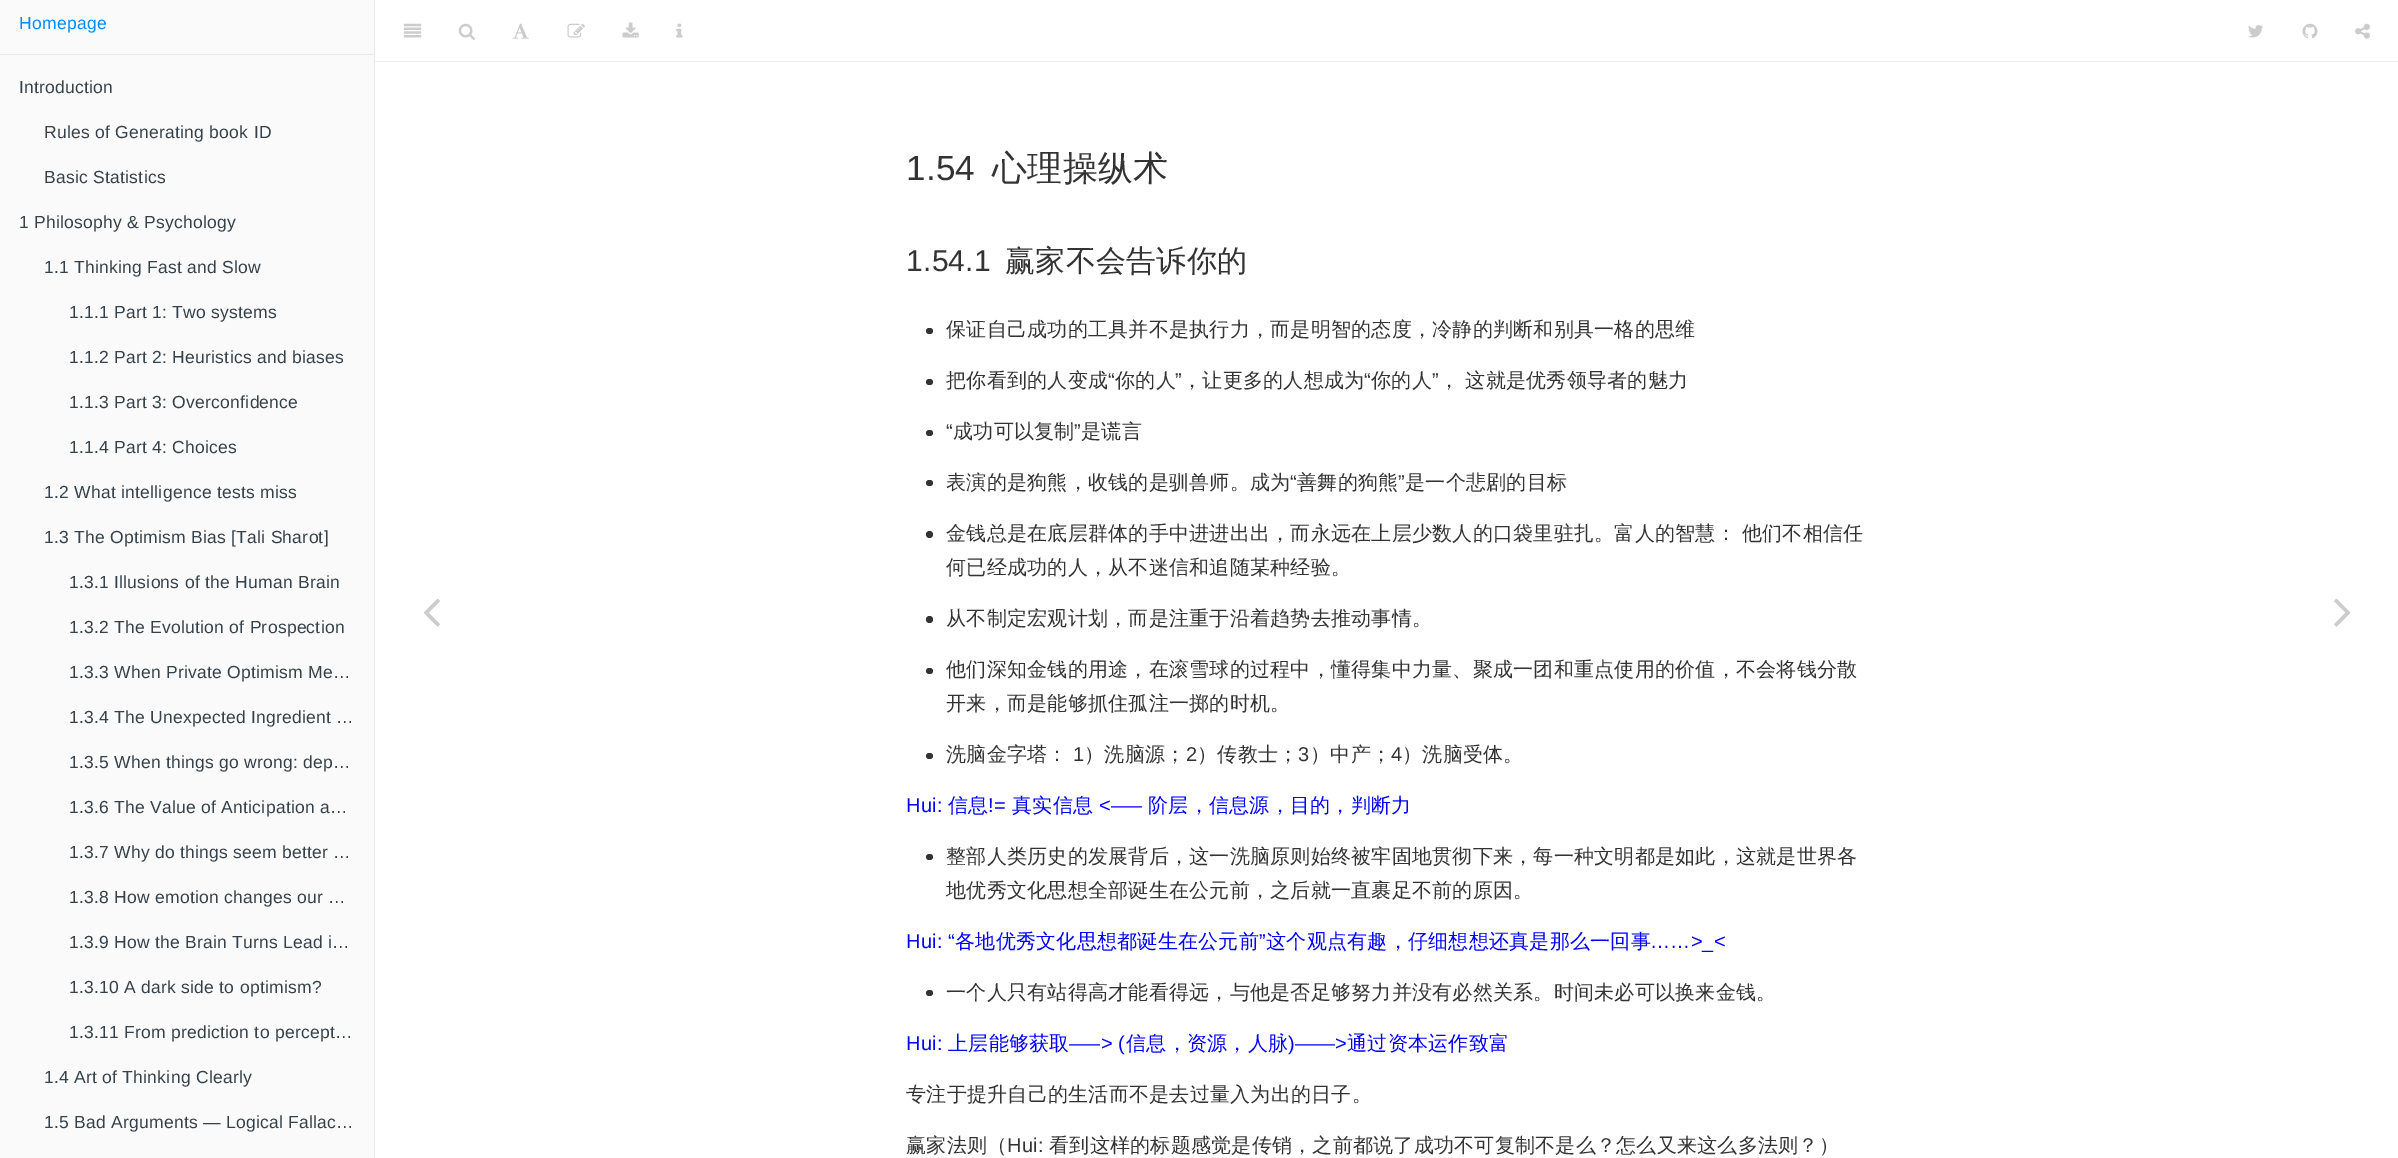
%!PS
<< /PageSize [2398 1158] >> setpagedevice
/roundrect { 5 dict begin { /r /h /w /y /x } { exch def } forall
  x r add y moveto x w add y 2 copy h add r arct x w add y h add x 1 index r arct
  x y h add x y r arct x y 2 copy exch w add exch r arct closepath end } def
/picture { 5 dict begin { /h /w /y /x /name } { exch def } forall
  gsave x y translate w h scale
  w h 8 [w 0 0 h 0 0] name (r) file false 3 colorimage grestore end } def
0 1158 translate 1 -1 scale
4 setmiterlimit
1 setgray
0 0 2398 1158 rectfill
0.98 setgray
0 0 374 1158 rectfill
0.914 setgray
374 0 1 1158 rectfill
/LiberationSans-Regular [17.5 0 0 -17.5 0 0] selectfont
0 0.549 1 setrgbcolor
19 29 moveto 0.25 0 (Homepage) ashow
0.914 setgray
0 54 374 1 rectfill
0.212 0.255 0.286 setrgbcolor
19 93 moveto 0.25 0 (Introduction) ashow
44 138 moveto 0.25 0 (Rules of Generating book ID) ashow
44 183 moveto 0.25 0 (Basic Statistics) ashow
19 228 moveto 0.25 0 (1) ashow
34 228 moveto 0.25 0 (Philosophy & Psychology) ashow
44 273 moveto 0.25 0 (1.1) ashow
74 273 moveto 0.25 0 (Thinking Fast and Slow) ashow
69 318 moveto 0.25 0 (1.1.1) ashow
114 318 moveto 0.25 0 (Part 1: Two systems) ashow
69 363 moveto 0.25 0 (1.1.2) ashow
114 363 moveto 0.25 0 (Part 2: Heuristics and biases) ashow
69 408 moveto 0.25 0 (1.1.3) ashow
114 408 moveto 0.25 0 (Part 3: Overconfidence) ashow
69 453 moveto 0.25 0 (1.1.4) ashow
114 453 moveto 0.25 0 (Part 4: Choices) ashow
44 498 moveto 0.25 0 (1.2) ashow
74 498 moveto 0.25 0 (What intelligence tests miss) ashow
44 543 moveto 0.25 0 (1.3) ashow
74 543 moveto 0.25 0 (The Optimism Bias [Tali Sharot]) ashow
69 588 moveto 0.25 0 (1.3.1) ashow
114 588 moveto 0.25 0 (Illusions of the Human Brain) ashow
69 633 moveto 0.25 0 (1.3.2) ashow
114 633 moveto 0.25 0 (The Evolution of Prospection) ashow
69 678 moveto 0.25 0 (1.3.3) ashow
114 678 moveto 0.25 0 (When Private Optimism Me…) ashow
69 723 moveto 0.25 0 (1.3.4) ashow
114 723 moveto 0.25 0 (The Unexpected Ingredient …) ashow
69 768 moveto 0.25 0 (1.3.5) ashow
114 768 moveto 0.25 0 (When things go wrong: dep…) ashow
69 813 moveto 0.25 0 (1.3.6) ashow
114 813 moveto 0.25 0 (The Value of Anticipation a…) ashow
69 858 moveto 0.25 0 (1.3.7) ashow
114 858 moveto 0.25 0 (Why do things seem better …) ashow
69 903 moveto 0.25 0 (1.3.8) ashow
114 903 moveto 0.25 0 (How emotion changes our …) ashow
69 948 moveto 0.25 0 (1.3.9) ashow
114 948 moveto 0.25 0 (How the Brain Turns Lead i…) ashow
69 993 moveto 0.25 0 (1.3.10) ashow
124 993 moveto 0.25 0 (A dark side to optimism?) ashow
69 1038 moveto 0.25 0 (1.3.11) ashow
124 1038 moveto 0.25 0 (From prediction to percept…) ashow
44 1083 moveto 0.25 0 (1.4) ashow
74 1083 moveto 0.25 0 (Art of Thinking Clearly) ashow
44 1128 moveto 0.25 0 (1.5) ashow
74 1128 moveto 0.25 0 (Bad Arguments — Logical Fallac…) ashow
(img1.rgb) 423 598 17 29 picture
0.929 setgray
375 61 2023 1 rectfill
(img2.rgb) 403 23 19 15 picture
(img3.rgb) 458 23 17 17 picture
(img4.rgb) 512 23 17 16 picture
(img5.rgb) 567 23 18 15 picture
(img6.rgb) 622 22 17 16 picture
(img7.rgb) 676 23 7 15 picture
(img8.rgb) 2248 25 15 13 picture
(img9.rgb) 2302 23 16 16 picture
(img10.rgb) 2355 23 15 16 picture
/LiberationSans-Regular [35 0 0 -35 0 0] selectfont
0.2 setgray
906 180 moveto 0.25 0 (1.54) ashow
/WenQuanYiZenHei-Medium [35 0 0 -35 0 0] selectfont
992 180 moveto 0.25 0 (心理操纵术) ashow
/LiberationSans-Regular [30 0 0 -30 0 0] selectfont
906 271 moveto 0.25 0 (1.54.1) ashow
/WenQuanYiZenHei-Medium [30 0 0 -30 0 0] selectfont
1005 271 moveto 0.25 0 (赢家不会告诉你的) ashow
926 328 7 6 3 roundrect fill
/WenQuanYiZenHei-Medium [20 0 0 -20 0 0] selectfont
946 336 moveto 0.25 0 (保证自己成功的工具并不是执行力，而是明智的态度，冷静的判断和别具一格的思维) ashow
926 379 7 6 3 roundrect fill
946 387 moveto 0.25 0 (把你看到的人变成) ashow
/LiberationSans-Regular [20 0 0 -20 0 0] selectfont
1108 387 moveto 0.25 0 (“) ashow
/WenQuanYiZenHei-Medium [20 0 0 -20 0 0] selectfont
1115 387 moveto 0.25 0 (你的人) ashow
/LiberationSans-Regular [20 0 0 -20 0 0] selectfont
1175 387 moveto 0.25 0 (”) ashow
/WenQuanYiZenHei-Medium [20 0 0 -20 0 0] selectfont
1182 387 moveto 0.25 0 (，让更多的人想成为) ashow
/LiberationSans-Regular [20 0 0 -20 0 0] selectfont
1364 387 moveto 0.25 0 (“) ashow
/WenQuanYiZenHei-Medium [20 0 0 -20 0 0] selectfont
1371 387 moveto 0.25 0 (你的人) ashow
/LiberationSans-Regular [20 0 0 -20 0 0] selectfont
1432 387 moveto 0.25 0 (”) ashow
/WenQuanYiZenHei-Medium [20 0 0 -20 0 0] selectfont
1439 387 moveto 0.25 0 (， 这就是优秀领导者的魅力) ashow
926 430 7 6 3 roundrect fill
/LiberationSans-Regular [20 0 0 -20 0 0] selectfont
946 438 moveto 0.25 0 (“) ashow
/WenQuanYiZenHei-Medium [20 0 0 -20 0 0] selectfont
953 438 moveto 0.25 0 (成功可以复制) ashow
/LiberationSans-Regular [20 0 0 -20 0 0] selectfont
1074 438 moveto 0.25 0 (”) ashow
/WenQuanYiZenHei-Medium [20 0 0 -20 0 0] selectfont
1081 438 moveto 0.25 0 (是谎言) ashow
926 480 7 6 3 roundrect fill
946 489 moveto 0.25 0 (表演的是狗熊，收钱的是驯兽师。成为) ashow
/LiberationSans-Regular [20 0 0 -20 0 0] selectfont
1290 489 moveto 0.25 0 (“) ashow
/WenQuanYiZenHei-Medium [20 0 0 -20 0 0] selectfont
1297 489 moveto 0.25 0 (善舞的狗熊) ashow
/LiberationSans-Regular [20 0 0 -20 0 0] selectfont
1398 489 moveto 0.25 0 (”) ashow
/WenQuanYiZenHei-Medium [20 0 0 -20 0 0] selectfont
1405 489 moveto 0.25 0 (是一个悲剧的目标) ashow
newpath 929.5 534.5 3.5 0 360 arc closepath fill
946 540 moveto 0.25 0 (金钱总是在底层群体的手中进进出出，而永远在上层少数人的口袋里驻扎。富人的智慧： 他们不相信任) ashow
946 574 moveto 0.25 0 (何已经成功的人，从不迷信和追随某种经验。) ashow
newpath 929.5 619.5 3.5 0 360 arc closepath fill
946 625 moveto 0.25 0 (从不制定宏观计划，而是注重于沿着趋势去推动事情。) ashow
926 668 7 6 3 roundrect fill
946 676 moveto 0.25 0 (他们深知金钱的用途，在滚雪球的过程中，懂得集中力量、聚成一团和重点使用的价值，不会将钱分散) ashow
946 710 moveto 0.25 0 (开来，而是能够抓住孤注一掷的时机。) ashow
926 753 7 6 3 roundrect fill
946 761 moveto 0.25 0 (洗脑金字塔：) ashow
/LiberationSans-Regular [20 0 0 -20 0 0] selectfont
1073 761 moveto 0.25 0 (1) ashow
/WenQuanYiZenHei-Medium [20 0 0 -20 0 0] selectfont
1084 761 moveto 0.25 0 (）洗脑源；) ashow
/LiberationSans-Regular [20 0 0 -20 0 0] selectfont
1186 761 moveto 0.25 0 (2) ashow
/WenQuanYiZenHei-Medium [20 0 0 -20 0 0] selectfont
1197 761 moveto 0.25 0 (）传教士；) ashow
/LiberationSans-Regular [20 0 0 -20 0 0] selectfont
1298 761 moveto 0.25 0 (3) ashow
/WenQuanYiZenHei-Medium [20 0 0 -20 0 0] selectfont
1310 761 moveto 0.25 0 (）中产；) ashow
/LiberationSans-Regular [20 0 0 -20 0 0] selectfont
1391 761 moveto 0.25 0 (4) ashow
/WenQuanYiZenHei-Medium [20 0 0 -20 0 0] selectfont
1402 761 moveto 0.25 0 (）洗脑受体。) ashow
/LiberationSans-Regular [20 0 0 -20 0 0] selectfont
0 0 1 setrgbcolor
906 812 moveto 0.25 0 (Hui:) ashow
/WenQuanYiZenHei-Medium [20 0 0 -20 0 0] selectfont
948 812 moveto 0.25 0 (信息) ashow
/LiberationSans-Regular [20 0 0 -20 0 0] selectfont
988 812 moveto 0.25 0 (!=) ashow
/WenQuanYiZenHei-Medium [20 0 0 -20 0 0] selectfont
1012 812 moveto 0.25 0 (真实信息) ashow
/LiberationSans-Regular [20 0 0 -20 0 0] selectfont
1099 812 moveto 0.25 0 (<—–) ashow
/WenQuanYiZenHei-Medium [20 0 0 -20 0 0] selectfont
1148 812 moveto 0.25 0 (阶层，信息源，目的，判断力) ashow
0.2 setgray
926 854 7 6 3 roundrect fill
946 863 moveto 0.25 0 (整部人类历史的发展背后，这一洗脑原则始终被牢固地贯彻下来，每一种文明都是如此，这就是世界各) ashow
946 897 moveto 0.25 0 (地优秀文化思想全部诞生在公元前，之后就一直裹足不前的原因。) ashow
/LiberationSans-Regular [20 0 0 -20 0 0] selectfont
0 0 1 setrgbcolor
906 948 moveto 0.25 0 (Hui: “) ashow
/WenQuanYiZenHei-Medium [20 0 0 -20 0 0] selectfont
955 948 moveto 0.25 0 (各地优秀文化思想都诞生在公元前) ashow
/LiberationSans-Regular [20 0 0 -20 0 0] selectfont
1259 948 moveto 0.25 0 (”) ashow
/WenQuanYiZenHei-Medium [20 0 0 -20 0 0] selectfont
1266 948 moveto 0.25 0 (这个观点有趣，仔细想想还真是那么一回事) ashow
/LiberationSans-Regular [20 0 0 -20 0 0] selectfont
1650 948 moveto 0.25 0 (……>_<) ashow
0.2 setgray
926 990 7 6 3 roundrect fill
/WenQuanYiZenHei-Medium [20 0 0 -20 0 0] selectfont
946 999 moveto 0.25 0 (一个人只有站得高才能看得远，与他是否足够努力并没有必然关系。时间未必可以换来金钱。) ashow
/LiberationSans-Regular [20 0 0 -20 0 0] selectfont
0 0 1 setrgbcolor
906 1050 moveto 0.25 0 (Hui:) ashow
/WenQuanYiZenHei-Medium [20 0 0 -20 0 0] selectfont
948 1050 moveto 0.25 0 (上层能够获取) ashow
/LiberationSans-Regular [20 0 0 -20 0 0] selectfont
1069 1050 moveto 0.25 0 (—–> \() ashow
/WenQuanYiZenHei-Medium [20 0 0 -20 0 0] selectfont
1126 1050 moveto 0.25 0 (信息，资源，人脉) ashow
/LiberationSans-Regular [20 0 0 -20 0 0] selectfont
1288 1050 moveto 0.25 0 (\)——>) ashow
/WenQuanYiZenHei-Medium [20 0 0 -20 0 0] selectfont
1347 1050 moveto 0.25 0 (通过资本运作致富) ashow
0.2 setgray
906 1101 moveto 0.25 0 (专注于提升自己的生活而不是去过量入为出的日子。) ashow
906 1152 moveto 0.25 0 (赢家法则（) ashow
/LiberationSans-Regular [20 0 0 -20 0 0] selectfont
1007 1152 moveto 0.25 0 (Hui:) ashow
/WenQuanYiZenHei-Medium [20 0 0 -20 0 0] selectfont
1049 1152 moveto 0.25 0 (看到这样的标题感觉是传销，之前都说了成功不可复制不是么？怎么又来这么多法则？）) ashow
(img11.rgb) 2334 598 17 29 picture
showpage
